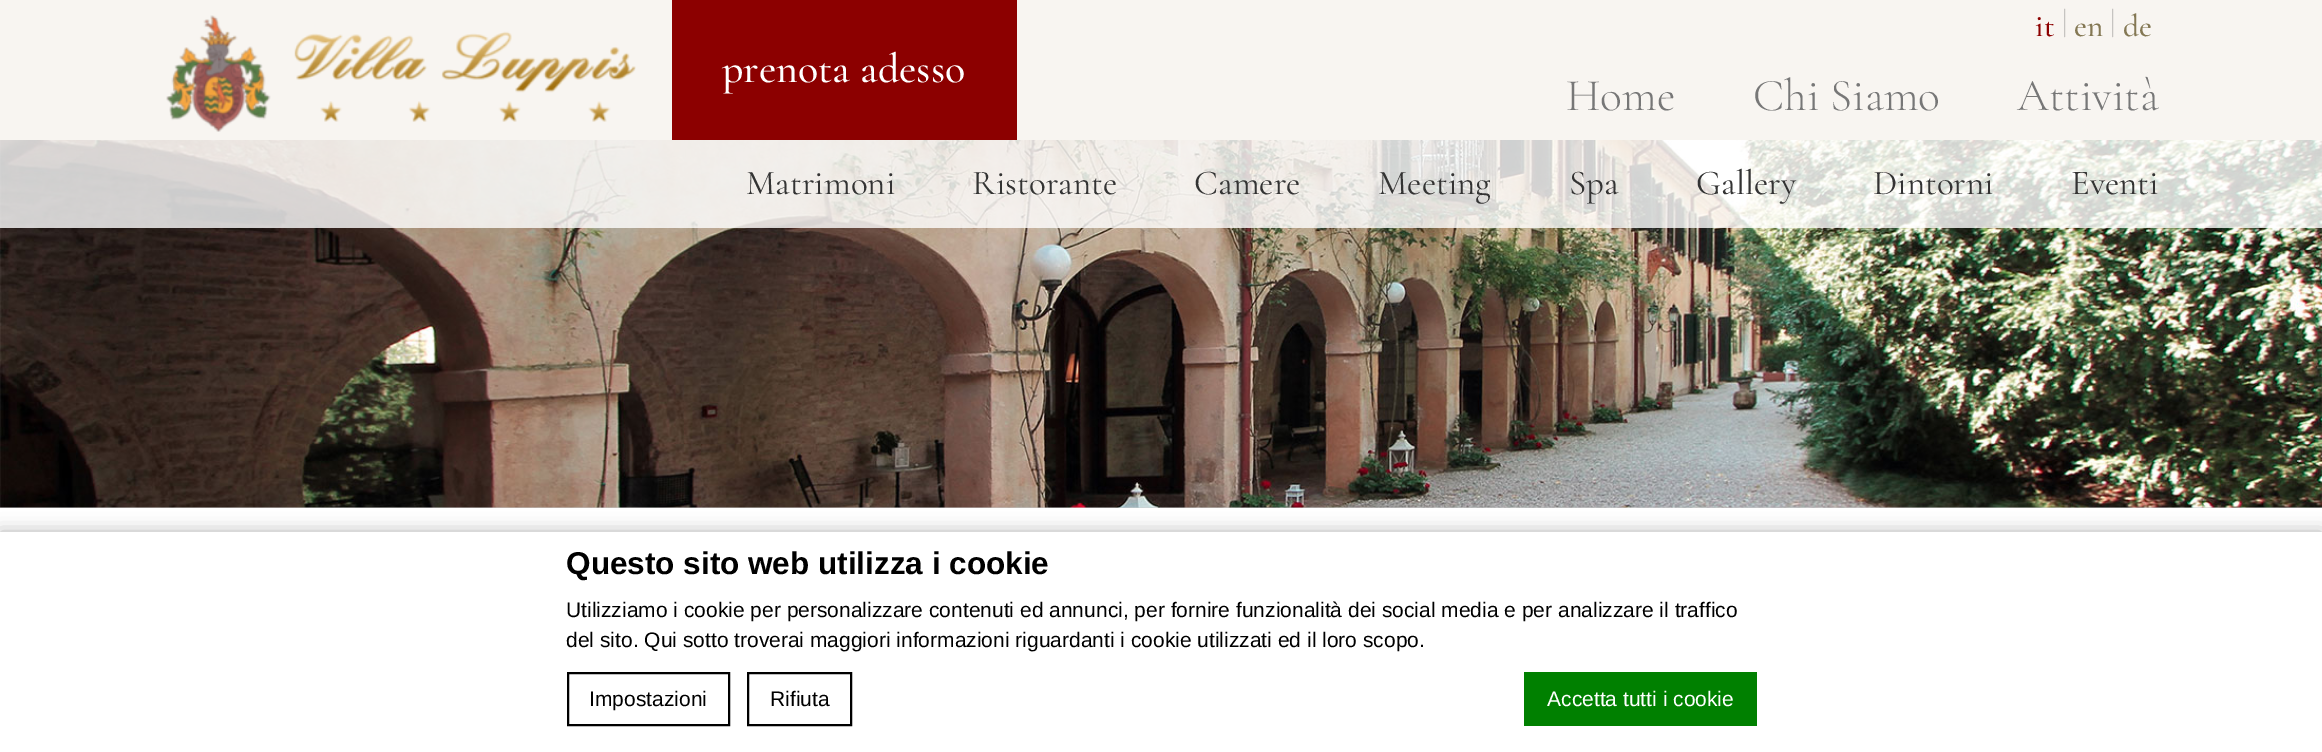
%!PS
<< /PageSize [2322 752] /PageUsesTransparency true >> setpagedevice
/alpha { dup .setfillconstantalpha .setstrokeconstantalpha } def
/roundrect { 5 dict begin { /r /h /w /y /x } { exch def } forall
  x r add y moveto x w add y 2 copy h add r arct x w add y h add x 1 index r arct
  x y h add x y r arct x y 2 copy exch w add exch r arct closepath end } def
/shadow { 12 dict begin { /a /b /q /h /w /y /x } { exch def } forall gsave /was 0 def
  9 -2 -9 { dup b mul 4 div /e exch def 1 sub .425 mul 2.718 exch exp 1 add a .99 .min exch div /now exch def
    1 1 now sub 1 was sub div sub alpha /was now def
    w h .min e 2 mul add 0 gt { x e sub y e sub w e 2 mul add h e 2 mul add
      q e add b .6 mul add w h .min 2 div e add .min 0 .max roundrect fill } if } for grestore end } def
/picture { 5 dict begin { /h /w /y /x /name } { exch def } forall
  gsave x y translate w h scale
  w h 8 [w 0 0 h 0 0] name (r) file false 3 colorimage grestore end } def
0 .pushpdf14devicefilter
0 752 translate 1 -1 scale
4 setmiterlimit
1 setgray
0 0 2322 752 rectfill
0.973 0.961 0.945 setrgbcolor
0 0 2322 140 rectfill
(img1.rgb) 166 15 470 117 picture
/CormorantGaramond-Medium [31.5 0 0 -31.5 0 0] selectfont
0.549 0 0 setrgbcolor
2035 36 moveto (it) show
0.776 0.769 0.757 setrgbcolor
2062 32 moveto (|) show
0.518 0.471 0.329 setrgbcolor
2074 36 moveto (en) show
0.776 0.769 0.757 setrgbcolor
2110 32 moveto (|) show
0.518 0.471 0.329 setrgbcolor
2123 36 moveto (de) show
0.549 0 0 setrgbcolor
672 0 345 140 rectfill
/CormorantGaramond-Medium [42 0 0 -42 0 0] selectfont
1 setgray
722 82 moveto (prenota adesso) show
/CormorantGaramond-Light [45.5 0 0 -45.5 0 0] selectfont
0.467 setgray
1566 110 moveto (Home) show
1753 110 moveto (Chi Siamo) show
2017 110 moveto (Attività) show
0.8 setgray
0 507 2322 1 rectfill
(img2.rgb) 0 140 2322 368 picture
0.8 alpha
1 setgray
0 140 2322 88 rectfill
/CormorantGaramond-Regular [35 0 0 -35 0 0] selectfont
1 alpha
0.2 setgray
746 194 moveto (Matrimoni) show
972 194 moveto (Ristorante) show
1194 194 moveto (Camere) show
1378 194 moveto (Meeting) show
1569 194 moveto (Spa) show
1696 194 moveto (Gallery) show
1873 194 moveto (Dintorni) show
2071 194 moveto (Eventi) show
0 setgray
0 532 2322 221 0 9 0.3 shadow
1 setgray
0 532 2322 220 rectfill
/LiberationSans-Bold [31.5 0 0 -31.5 0 0] selectfont
0 setgray
566 574 moveto (Questo sito web utilizza i cookie) show
/LiberationSans-Regular [21 0 0 -21 0 0] selectfont
566 617 moveto (Utilizziamo i cookie per personalizzare contenuti ed annunci, per fornire funzionalità dei social media e per analizzare il traffico) show
566 647 moveto (del sito. Qui sotto troverai maggiori informazioni riguardanti i cookie utilizzati ed il loro scopo.) show
2 setlinewidth
568 673 161 52 rectstroke
589 706 moveto (Impostazioni) show
748 673 103 52 rectstroke
770 706 moveto (Rifiuta) show
0 0.502 0 setrgbcolor
1524 672 233 54 rectfill
1 setgray
1547 706 moveto (Accetta tutti i cookie) show
.poppdf14devicefilter showpage
